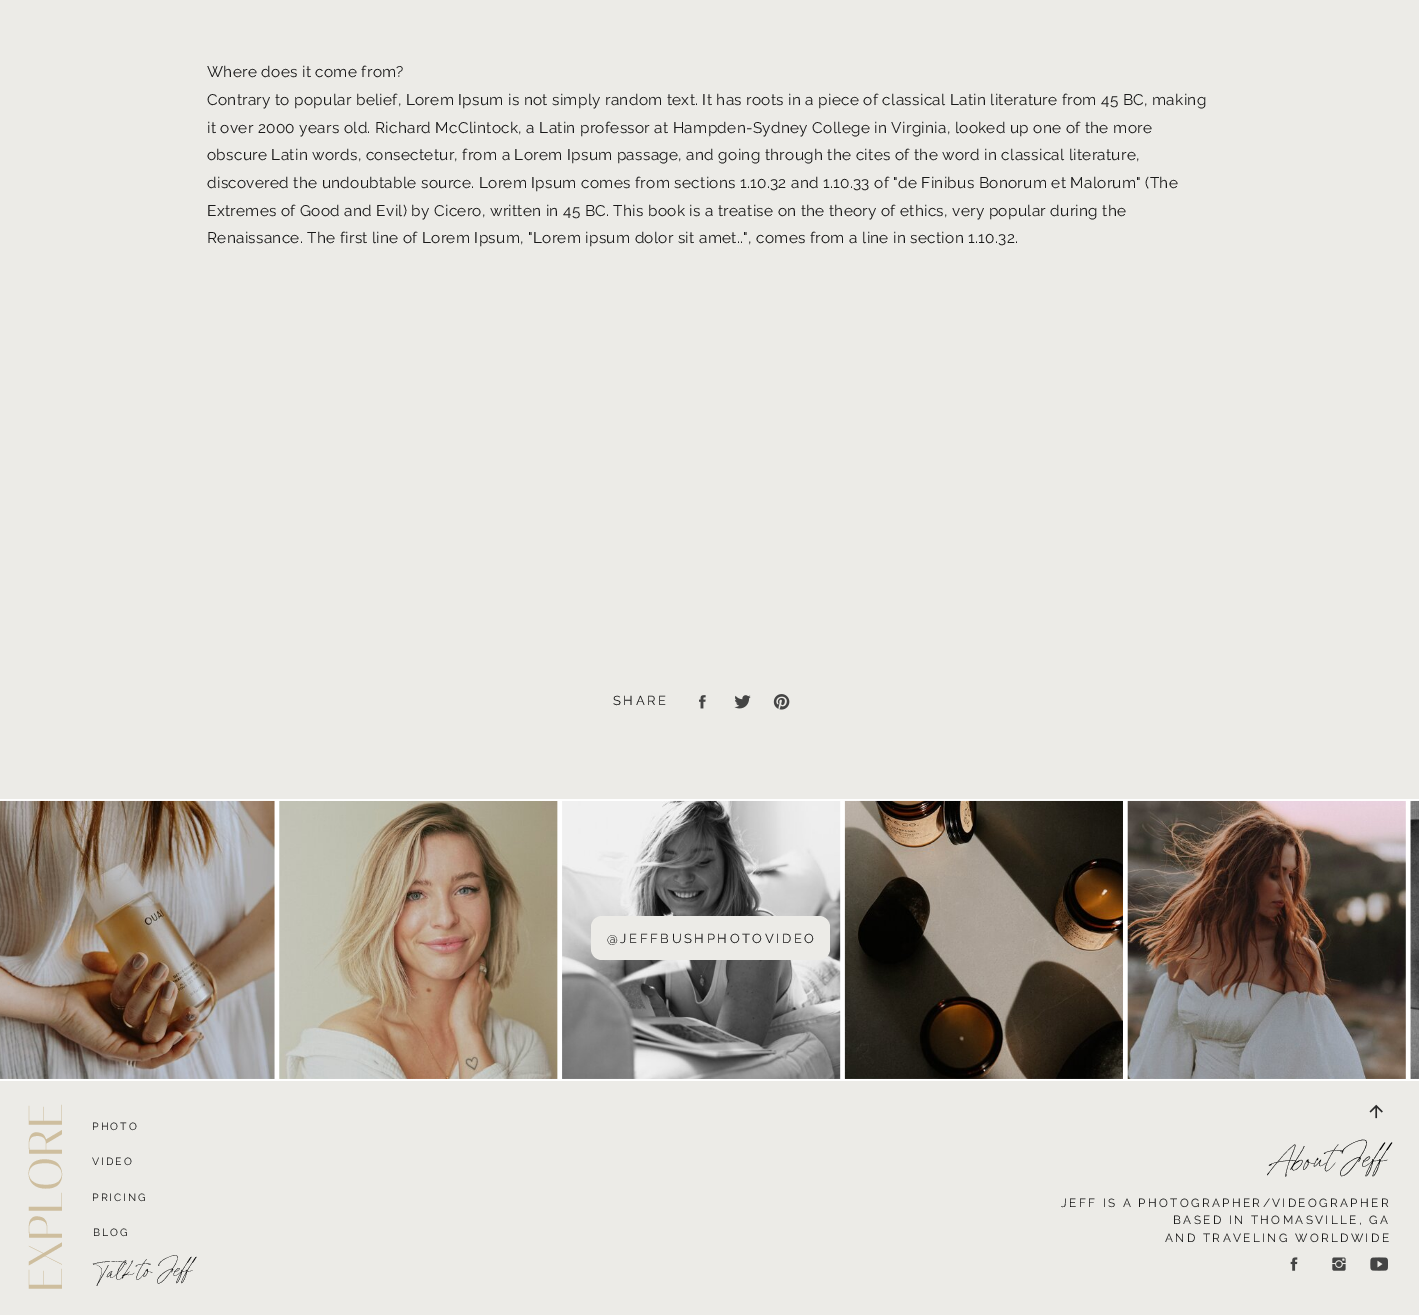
%!PS
<< /PageSize [1419 1315] >> setpagedevice
/roundrect { 5 dict begin { /r /h /w /y /x } { exch def } forall
  x r add y moveto x w add y 2 copy h add r arct x w add y h add x 1 index r arct
  x y h add x y r arct x y 2 copy exch w add exch r arct closepath end } def
/picture { 5 dict begin { /h /w /y /x /name } { exch def } forall
  gsave x y translate w h scale
  w h 8 [w 0 0 h 0 0] name (r) file false 3 colorimage grestore end } def
0 1315 translate 1 -1 scale
4 setmiterlimit
1 setgray
0 0 1419 1315 rectfill
0.925 0.922 0.906 setrgbcolor
0 0 1419 799 rectfill
/Raleway-Thin [15.38 0 0 -15.38 0 0] selectfont
0.098 setgray
207 77 moveto 0.31 0 (Where does it come from?) ashow
207 105 moveto 0.31 0 (Contrary to popular belief, Lorem Ipsum is not simply random text. It has roots in a piece of classical Latin literature from 45 BC, making) ashow
207 133 moveto 0.31 0 (it over 2000 years old. Richard McClintock, a Latin professor at Hampden-Sydney College in Virginia, looked up one of the more) ashow
207 160 moveto 0.31 0 (obscure Latin words, consectetur, from a Lorem Ipsum passage, and going through the cites of the word in classical literature,) ashow
207 188 moveto 0.31 0 (discovered the undoubtable source. Lorem Ipsum comes from sections 1.10.32 and 1.10.33 of "de Finibus Bonorum et Malorum" \(The) ashow
207 216 moveto 0.31 0 (Extremes of Good and Evil\) by Cicero, written in 45 BC. This book is a treatise on the theory of ethics, very popular during the) ashow
207 243 moveto 0.31 0 (Renaissance. The first line of Lorem Ipsum, "Lorem ipsum dolor sit amet..", comes from a line in section 1.10.32.) ashow
/Raleway-Thin [13 0 0 -13 0 0] selectfont
613 705 moveto 2.6 0 (SHARE) ashow
(img1.rgb) 699 695 7 14 picture
(img2.rgb) 734 695 17 14 picture
(img3.rgb) 773 694 17 16 picture
(img4.rgb) 0 800 275 279 picture
(img5.rgb) 279 801 279 278 picture
(img6.rgb) 562 800 279 279 picture
(img7.rgb) 844 800 279 279 picture
(img8.rgb) 1127 800 279 279 picture
(img9.rgb) 1410 800 9 279 picture
0.925 0.922 0.906 setrgbcolor
591 916 239 44 11 roundrect fill
0.098 setgray
607 943 moveto 2.6 0 (@JEFFBUSHPHOTOVIDEO) ashow
0.925 0.922 0.906 setrgbcolor
0 1081 1419 234 rectfill
/Italiana-Regular [47.5 0 0 -47.5 0 0] selectfont
0.808 0.745 0.62 setrgbcolor
gsave 62 1292 translate -90 rotate 0 0 moveto (EXPLORE) show grestore
/Raleway-Thin [10.5 0 0 -10.5 0 0] selectfont
0.098 setgray
92 1130 moveto 2 0 (PHOTO) ashow
(img10.rgb) 1369 1104 14 15 picture
92 1165 moveto 2 0 (VIDEO) ashow
/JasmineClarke-Regular [38 0 0 -38 0 0] selectfont
0 setgray
gsave 1267 1177 translate -3 rotate 0 0 moveto (About Jeff) show grestore
/Raleway-Thin [10.5 0 0 -10.5 0 0] selectfont
0.098 setgray
92 1201 moveto 2 0 (PRICING) ashow
/Raleway-Thin [11.8 0 0 -11.8 0 0] selectfont
1061 1207 moveto 2.35 0 (JEFF IS A PHOTOGRAPHER/VIDEOGRAPHER) ashow
1173 1224 moveto 2.35 0 (BASED IN THOMASVILLE, GA) ashow
1165 1242 moveto 2.35 0 (AND TRAVELING WORLDWIDE) ashow
/Raleway-Thin [10.5 0 0 -10.5 0 0] selectfont
93 1236 moveto 2 0 (BLOG) ashow
/JasmineClarke-Regular [29.5 0 0 -29.5 0 0] selectfont
0 setgray
gsave 94 1284 translate -3 rotate 0 0 moveto (Talk to Jeff) show grestore
(img11.rgb) 1290 1257 8 14 picture
(img12.rgb) 1332 1257 14 14 picture
(img13.rgb) 1370 1257 18 14 picture
showpage
